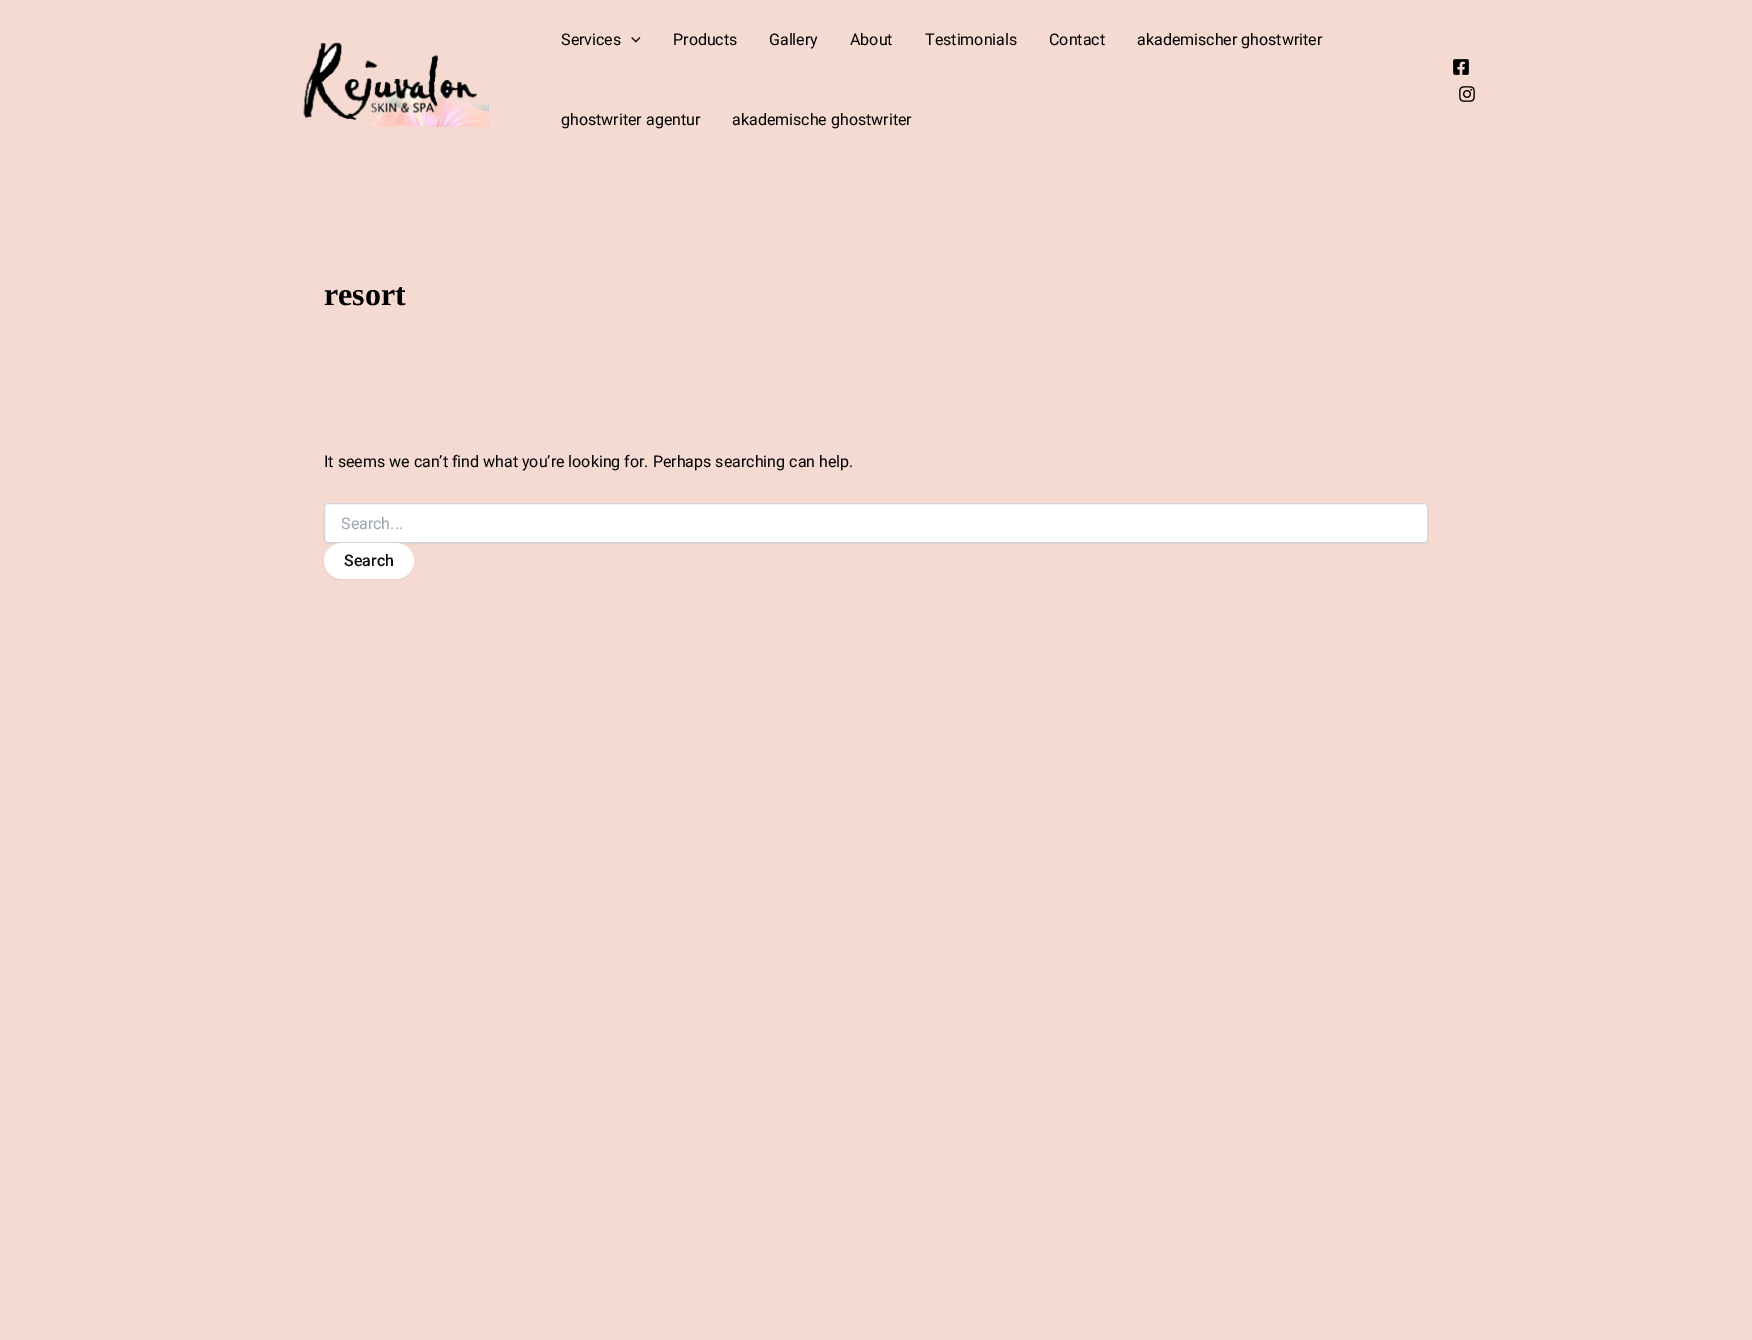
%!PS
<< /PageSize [1752 1340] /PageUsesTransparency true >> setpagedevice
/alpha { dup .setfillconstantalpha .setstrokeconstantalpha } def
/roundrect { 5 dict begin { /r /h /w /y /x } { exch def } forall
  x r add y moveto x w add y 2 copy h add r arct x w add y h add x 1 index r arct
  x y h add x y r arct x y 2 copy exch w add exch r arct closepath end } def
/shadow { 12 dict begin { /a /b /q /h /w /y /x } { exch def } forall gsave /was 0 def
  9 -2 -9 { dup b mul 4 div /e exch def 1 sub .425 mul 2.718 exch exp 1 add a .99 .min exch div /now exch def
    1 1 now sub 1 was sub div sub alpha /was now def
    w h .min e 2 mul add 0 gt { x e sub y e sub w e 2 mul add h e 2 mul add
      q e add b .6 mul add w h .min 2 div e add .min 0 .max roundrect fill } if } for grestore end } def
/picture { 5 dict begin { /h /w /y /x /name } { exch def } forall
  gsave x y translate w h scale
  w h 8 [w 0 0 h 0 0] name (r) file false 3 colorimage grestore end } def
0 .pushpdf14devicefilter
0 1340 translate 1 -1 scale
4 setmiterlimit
0.961 0.855 0.82 setrgbcolor
0 0 1752 1340 rectfill
(img1.rgb) 303 42 186 85 picture
/Roboto-Regular [16 0 0 -16 0 0] selectfont
0 setgray
561 45 moveto (Services) show
(img2.rgb) 631 37 10 6 picture
673 45 moveto (Products) show
769 45 moveto (Gallery) show
850 45 moveto (About) show
925 45 moveto (Testimonials) show
1049 45 moveto (Contact) show
1137 45 moveto (akademischer ghostwriter) show
561 125 moveto (ghostwriter agentur) show
732 125 moveto (akademische ghostwriter) show
(img3.rgb) 1453 59 16 16 picture
(img4.rgb) 1459 86 16 16 picture
/LiberationSerif-Bold [32 0 0 -32 0 0] selectfont
324 305 moveto (resort) show
/Roboto-Regular [16 0 0 -16 0 0] selectfont
324 467 moveto (It seems we can’t find what you’re looking for. Perhaps searching can help.) show
324 504 1104 40 4 1 0.05 shadow
1 setgray
324.5 503.5 1103 39 3.5 roundrect gsave fill grestore
0.82 0.835 0.859 setrgbcolor
stroke
0.612 0.639 0.686 setrgbcolor
341 529 moveto (Search...) show
0 setgray
324 544 90 36 18 1 0.05 shadow
1 setgray
324 543 90 36 18 roundrect fill
/Roboto-Medium [16 0 0 -16 0 0] selectfont
0.067 setgray
344 566 moveto (Search) show
.poppdf14devicefilter showpage
